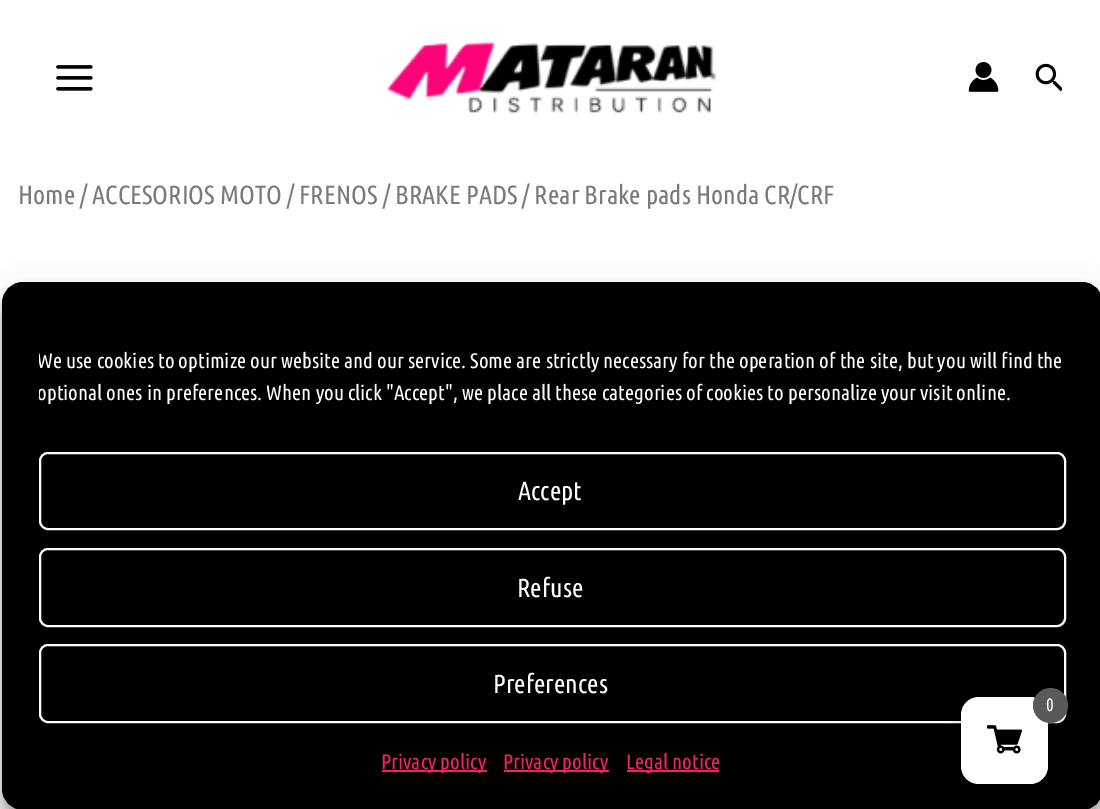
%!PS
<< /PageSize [1100 809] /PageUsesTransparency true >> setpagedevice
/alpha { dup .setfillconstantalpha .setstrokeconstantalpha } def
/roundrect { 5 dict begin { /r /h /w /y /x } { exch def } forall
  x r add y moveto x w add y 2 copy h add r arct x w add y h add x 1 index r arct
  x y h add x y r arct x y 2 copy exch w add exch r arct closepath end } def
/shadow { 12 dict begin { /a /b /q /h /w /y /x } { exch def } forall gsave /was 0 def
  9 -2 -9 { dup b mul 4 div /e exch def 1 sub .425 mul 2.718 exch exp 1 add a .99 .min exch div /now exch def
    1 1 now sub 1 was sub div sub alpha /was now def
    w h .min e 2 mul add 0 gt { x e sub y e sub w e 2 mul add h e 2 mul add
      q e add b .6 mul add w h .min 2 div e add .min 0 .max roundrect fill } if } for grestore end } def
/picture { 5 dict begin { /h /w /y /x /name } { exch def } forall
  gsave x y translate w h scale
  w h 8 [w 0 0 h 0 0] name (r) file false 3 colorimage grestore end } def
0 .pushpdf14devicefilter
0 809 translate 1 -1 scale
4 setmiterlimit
1 setgray
0 0 1100 809 rectfill
(img1.rgb) 56 65 37 26 picture
(img2.rgb) 386 41 331 73 picture
(img3.rgb) 968 62 31 30 picture
(img4.rgb) 1035 63 27 29 picture
/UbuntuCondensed-Regular [26.25 0 0 -26.25 0 0] selectfont
0.478 setgray
18 204 moveto (Home) show
80 204 moveto (/) show
92 204 moveto (ACCESORIOS MOTO) show
287 204 moveto (/) show
299 204 moveto (FRENOS) show
383 204 moveto (/) show
395 204 moveto (BRAKE PADS) show
522 204 moveto (/ Rear Brake pads Honda CR/CRF) show
0 setgray
2 292 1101 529 21 5 0.23 shadow
2 299 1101 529 21 17.5 0.19 shadow
3 283 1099 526 20 roundrect gsave fill grestore
2 setlinewidth
stroke
gsave
39 345 1027 72 rectclip
/UbuntuCondensed-Regular [21 0 0 -21 0 0] selectfont
1 setgray
37 368 moveto (We use cookies to optimize our website and our service. Some are strictly necessary for the operation of the site, but you will find the) show
37 400 moveto (optional ones in preferences. When you click "Accept", we place all these categories of cookies to personalize your visit online.) show
grestore
1 setgray
40 453 1025 76 8 roundrect stroke
518 500 moveto (Accept) show
40 549 1025 77 8 roundrect stroke
517 597 moveto (Refuse) show
40 645 1025 77 8 roundrect stroke
493 693 moveto (Preferences) show
0.949 0.129 0.416 setrgbcolor
382 770 105 2 rectfill
/UbuntuCondensed-Regular [21 0 0 -21 0 0] selectfont
381 769 moveto (Privacy policy) show
504 770 105 2 rectfill
503 769 moveto (Privacy policy) show
627 770 92 2 rectfill
626 769 moveto (Legal notice) show
0 setgray
961 704 87 87 18 9 0.17 shadow
1 setgray
961 697 87 87 18 roundrect fill
0.349 setgray
newpath 1050.5 705.5 17.5 0 360 arc closepath fill
/UbuntuCondensed-Regular [18 0 0 -18 0 0] selectfont
1 setgray
1046 711 moveto (0) show
(img5.rgb) 987 725 35 29 picture
.poppdf14devicefilter showpage
